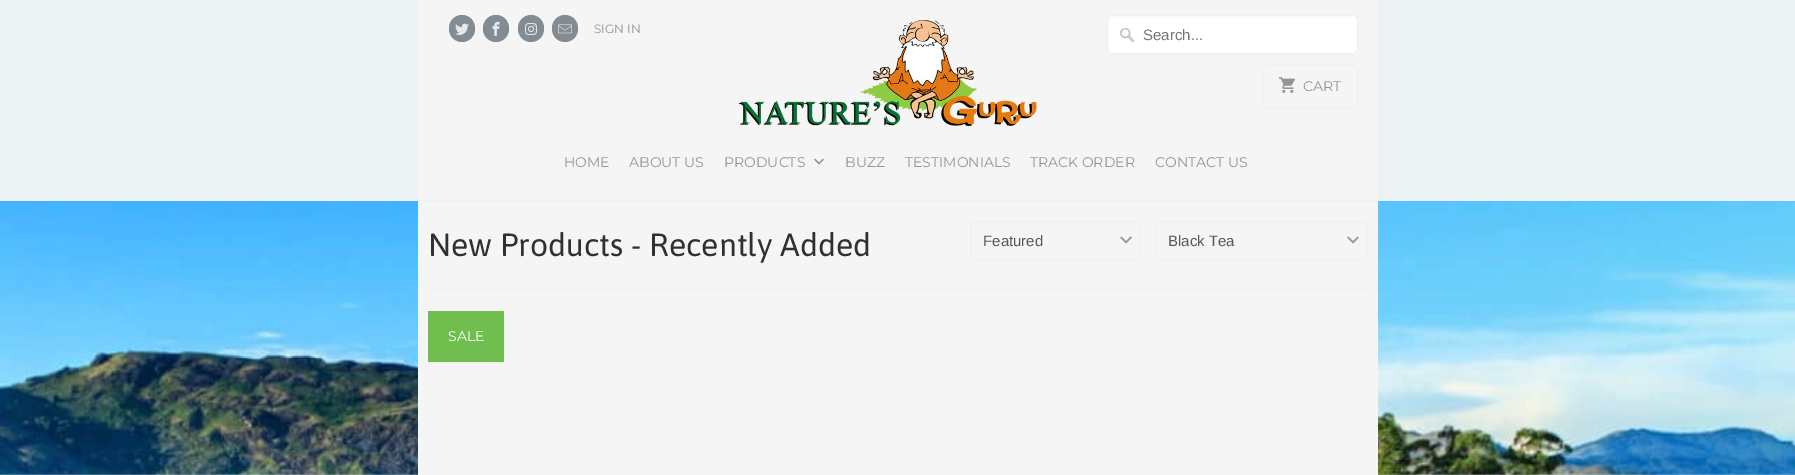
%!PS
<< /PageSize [1795 475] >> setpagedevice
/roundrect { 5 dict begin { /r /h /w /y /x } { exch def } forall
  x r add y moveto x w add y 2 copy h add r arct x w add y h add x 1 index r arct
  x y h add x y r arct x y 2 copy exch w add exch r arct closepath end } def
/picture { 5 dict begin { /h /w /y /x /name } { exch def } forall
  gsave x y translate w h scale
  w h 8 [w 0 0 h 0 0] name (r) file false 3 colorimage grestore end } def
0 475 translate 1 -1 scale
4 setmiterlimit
1 setgray
0 0 1795 475 rectfill
(img1.rgb) 0 201 1795 274 picture
0.925 0.949 0.953 setrgbcolor
0 0 1795 201 rectfill
0.961 setgray
418 0 960 200 rectfill
0.514 0.545 0.576 setrgbcolor
449 15 26 27 13 roundrect fill
(img2.rgb) 455 23 14 12 picture
483 15 26 27 13 roundrect fill
(img3.rgb) 492 21 8 15 picture
518 15 26 27 13 roundrect fill
(img4.rgb) 525 23 12 12 picture
552 15 26 27 13 roundrect fill
(img5.rgb) 558 24 14 10 picture
/Montserrat-Regular [12 0 0 -12 0 0] selectfont
0.588 setgray
594 33 moveto (SIGN IN) show
(img6.rgb) 738 20 299 107 picture
1 setgray
1107 15 251 39 5 roundrect fill
(img7.rgb) 1120 28 14 14 picture
0.925 0.949 0.953 setrgbcolor
1107.5 15.5 250 38 4.5 roundrect stroke
/LiberationSans-Regular [15 0 0 -15 0 0] selectfont
0.459 setgray
1143 40 moveto (Search...) show
0.925 0.949 0.953 setrgbcolor
1263.5 64.5 94 43 4.5 roundrect stroke
(img8.rgb) 1279 77 16 16 picture
/Montserrat-Regular [14 0 0 -14 0 0] selectfont
0.588 setgray
1303 91 moveto (CART) show
564 167 moveto (HOME) show
629 167 moveto (ABOUT US) show
724 167 moveto (PRODUCTS) show
(img9.rgb) 814 158 10 7 picture
845 167 moveto (BUZZ) show
905 167 moveto (TESTIMONIALS) show
1030 167 moveto (TRACK ORDER) show
1155 167 moveto (CONTACT US) show
0.961 setgray
418 201 960 274 rectfill
0.925 0.949 0.953 setrgbcolor
428 289 940 1 rectfill
/Asap-Regular [32 0 0 -32 0 0] selectfont
0.188 setgray
428 256 moveto (New Products - Recently Added) show
(img10.rgb) 1120 236 12 8 picture
0.925 0.949 0.953 setrgbcolor
970.5 221.5 169 38 4.5 roundrect stroke
/LiberationSans-Regular [15 0 0 -15 0 0] selectfont
0.318 0.349 0.365 setrgbcolor
983 246 moveto (Featured) show
(img10.rgb) 1347 236 12 8 picture
0.925 0.949 0.953 setrgbcolor
1155.5 221.5 212 38 4.5 roundrect stroke
0.318 0.349 0.365 setrgbcolor
1168 246 moveto (Black Tea) show
0.439 0.745 0.302 setrgbcolor
428 311 76 51 rectfill
/Montserrat-Regular [14 0 0 -14 0 0] selectfont
1 setgray
448 341 moveto (SALE) show
showpage
